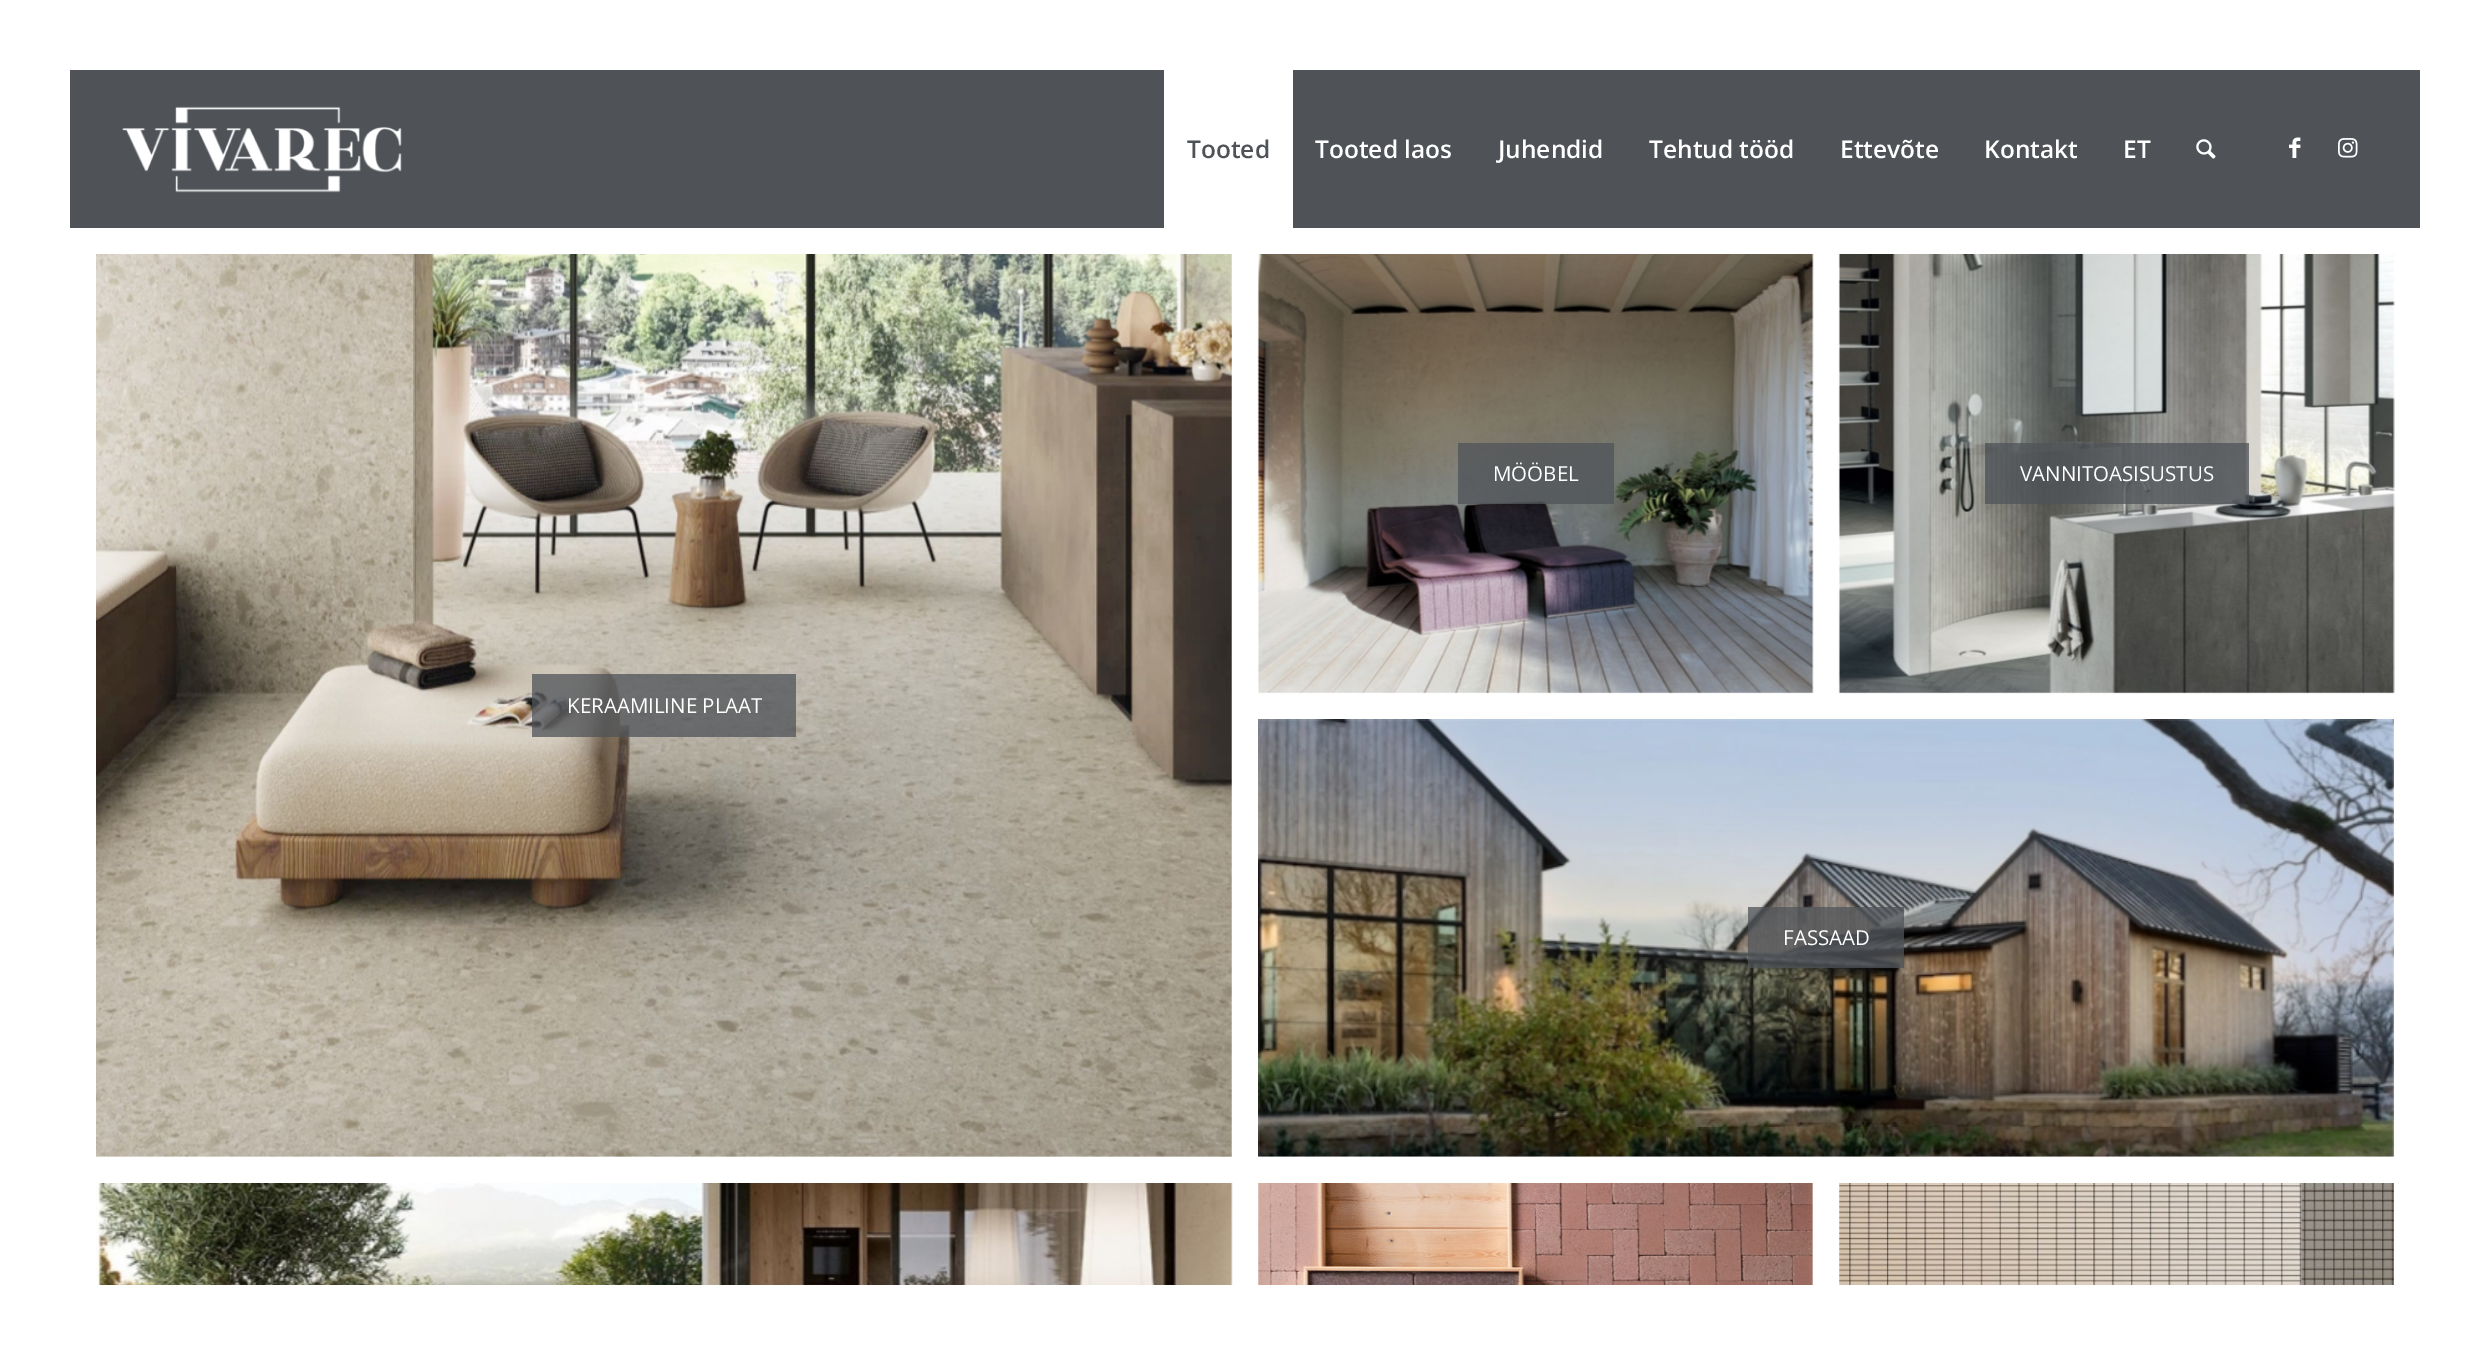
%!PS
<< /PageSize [2489 1354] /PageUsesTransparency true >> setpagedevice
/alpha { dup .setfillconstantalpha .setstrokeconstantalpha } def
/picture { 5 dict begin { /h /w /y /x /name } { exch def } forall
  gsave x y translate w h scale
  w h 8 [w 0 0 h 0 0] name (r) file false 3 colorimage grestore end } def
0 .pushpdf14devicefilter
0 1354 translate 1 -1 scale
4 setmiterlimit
1 setgray
0 0 2489 1354 rectfill
0.31 0.325 0.345 setrgbcolor
70 70 2350 158 rectfill
(img1.rgb) 122 106 280 87 picture
1 setgray
1164 70 129 158 rectfill
/OpenSans-SemiBold [24.5 0 0 -24.5 0 0] selectfont
0.31 0.325 0.345 setrgbcolor
1187 158 moveto (Tooted) show
1 setgray
1315 158 moveto (Tooted laos) show
1498 158 moveto (Juhendid) show
1649 158 moveto (Tehtud tööd) show
1840 158 moveto (Ettevõte) show
1984 158 moveto (Kontakt) show
2123 158 moveto (ET) show
(img2.rgb) 2196 139 20 20 picture
(img3.rgb) 2289 137 12 21 picture
(img4.rgb) 2338 138 20 20 picture
(img5.rgb) 1257 254 557 440 picture
0.75 alpha
0.31 0.325 0.345 setrgbcolor
1458 443 156 61 rectfill
/OpenSans-Regular [20.5 0 0 -20.5 0 0] selectfont
1 alpha
1 setgray
1493 481 moveto (MÖÖBEL) show
(img6.rgb) 1838 254 557 440 picture
0.75 alpha
0.31 0.325 0.345 setrgbcolor
1985 443 264 61 rectfill
1 alpha
1 setgray
2020 481 moveto (VANNITOASISUSTUS) show
(img7.rgb) 96 254 1136 903 picture
0.75 alpha
0.31 0.325 0.345 setrgbcolor
532 674 264 63 rectfill
1 alpha
1 setgray
567 713 moveto (KERAAMILINE PLAAT) show
(img8.rgb) 1258 719 1136 438 picture
0.75 alpha
0.31 0.325 0.345 setrgbcolor
1748 907 156 61 rectfill
1 alpha
1 setgray
1783 945 moveto (FASSAAD) show
(img9.rgb) 96 1183 1137 102 picture
(img10.rgb) 1258 1183 555 102 picture
(img11.rgb) 1839 1183 555 102 picture
.poppdf14devicefilter showpage
